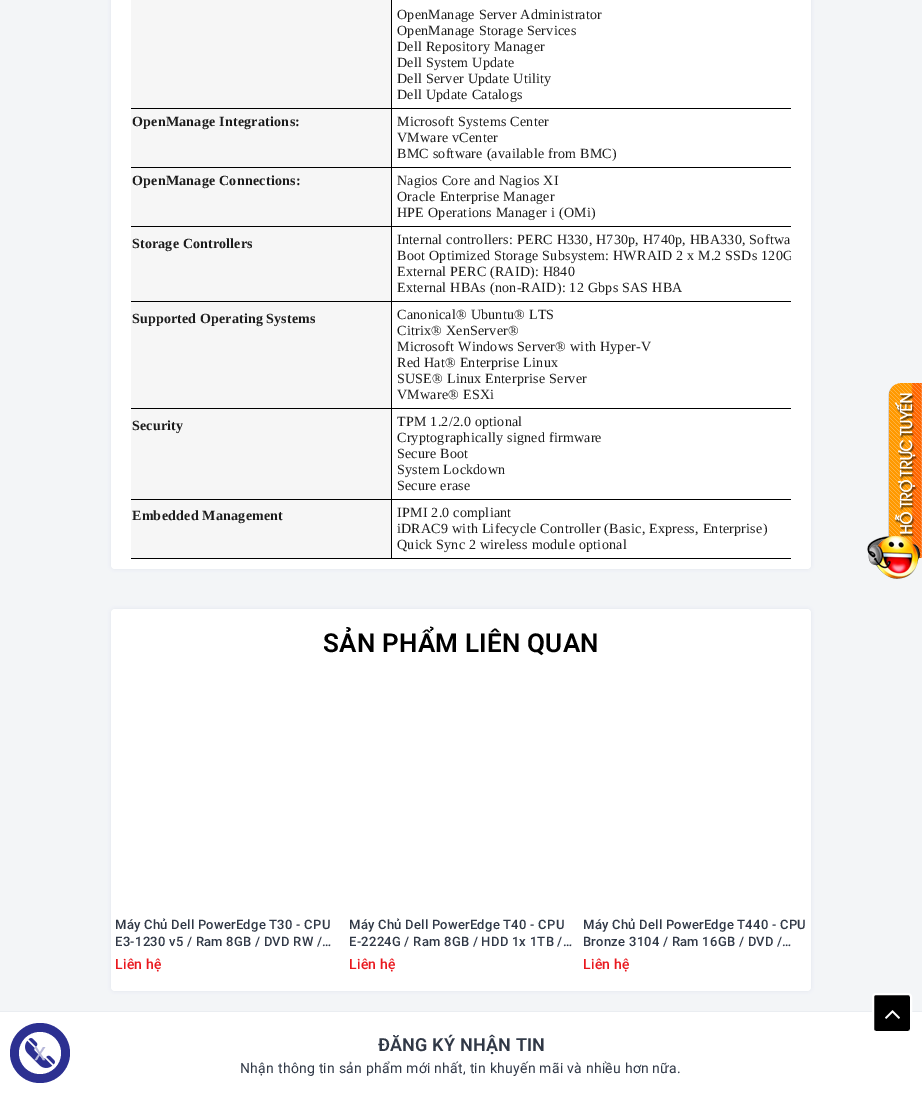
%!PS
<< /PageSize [922 1093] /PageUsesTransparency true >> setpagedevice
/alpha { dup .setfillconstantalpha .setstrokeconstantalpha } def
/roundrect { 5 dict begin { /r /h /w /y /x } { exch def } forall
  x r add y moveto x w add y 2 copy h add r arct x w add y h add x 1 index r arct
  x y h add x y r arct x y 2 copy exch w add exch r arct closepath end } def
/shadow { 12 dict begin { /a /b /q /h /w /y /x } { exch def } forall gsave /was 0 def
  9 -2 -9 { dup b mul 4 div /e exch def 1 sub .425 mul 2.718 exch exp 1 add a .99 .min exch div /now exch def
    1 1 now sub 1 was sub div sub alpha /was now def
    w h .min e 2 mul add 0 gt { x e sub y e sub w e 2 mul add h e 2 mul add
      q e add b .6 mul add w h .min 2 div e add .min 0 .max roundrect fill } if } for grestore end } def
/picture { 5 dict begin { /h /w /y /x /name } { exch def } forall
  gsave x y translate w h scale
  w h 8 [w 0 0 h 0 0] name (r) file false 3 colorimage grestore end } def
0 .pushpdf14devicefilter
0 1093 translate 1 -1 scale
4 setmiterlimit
0.953 0.961 0.969 setrgbcolor
0 0 922 1093 rectfill
0.596 0.647 0.725 setrgbcolor
111 -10 700 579 4 2 0.2 shadow
1 setgray
111 -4 700 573 4 roundrect fill
0.965 setgray
131 0 260 108 rectfill
0 setgray
391 558 400 1 rectfill
391 499 1 60 rectfill
391 499 400 1 rectfill
391 408 1 92 rectfill
391 408 400 1 rectfill
391 301 1 108 rectfill
391 301 400 1 rectfill
391 226 1 76 rectfill
391 226 400 1 rectfill
391 167 1 60 rectfill
391 167 400 1 rectfill
391 108 1 60 rectfill
391 108 400 1 rectfill
391 0 1 109 rectfill
131 108 261 1 rectfill
/LiberationSerif-Regular [14 0 0 -14 0 0] selectfont
0.11 setgray
397 19 moveto 0.25 0 (OpenManage Server Administrator) ashow
397 35 moveto 0.25 0 (OpenManage Storage Services) ashow
397 51 moveto 0.25 0 (Dell Repository Manager) ashow
397 67 moveto 0.25 0 (Dell System Update) ashow
397 83 moveto 0.25 0 (Dell Server Update Utility) ashow
397 99 moveto 0.25 0 (Dell Update Catalogs) ashow
0.965 setgray
131 109 260 58 rectfill
0 setgray
131 167 261 1 rectfill
/LiberationSerif-Bold [14 0 0 -14 0 0] selectfont
0.11 setgray
132 126 moveto 0.25 0 (OpenManage Integrations:) ashow
/LiberationSerif-Regular [14 0 0 -14 0 0] selectfont
397 126 moveto 0.25 0 (Microsoft Systems Center) ashow
397 142 moveto 0.25 0 (VMware vCenter) ashow
397 158 moveto 0.25 0 (BMC software \(available from BMC\)) ashow
0.965 setgray
131 168 260 58 rectfill
0 setgray
131 226 261 1 rectfill
/LiberationSerif-Bold [14 0 0 -14 0 0] selectfont
0.11 setgray
132 185 moveto 0.25 0 (OpenManage Connections:) ashow
/LiberationSerif-Regular [14 0 0 -14 0 0] selectfont
397 185 moveto 0.25 0 (Nagios Core and Nagios XI) ashow
397 201 moveto 0.25 0 (Oracle Enterprise Manager) ashow
397 217 moveto 0.25 0 (HPE Operations Manager i \(OMi\)) ashow
0.965 setgray
131 227 260 74 rectfill
0 setgray
131 301 261 1 rectfill
/LiberationSerif-Bold [14 0 0 -14 0 0] selectfont
0.11 setgray
132 248 moveto 0.15 0 (Storage Controllers) ashow
/LiberationSerif-Regular [14 0 0 -14 0 0] selectfont
397 244 moveto 0.25 0 (Internal controllers: PERC H330, H730p, H740p, HBA330, Softwa) ashow
gsave
131 0 660 559 rectclip
397 260 moveto 0.25 0 (Boot Optimized Storage Subsystem: HWRAID 2 x M.2 SSDs 120G) ashow
grestore
397 276 moveto 0.25 0 (External PERC \(RAID\): H840) ashow
397 292 moveto 0.25 0 (External HBAs \(non-RAID\): 12 Gbps SAS HBA) ashow
0.965 setgray
131 302 260 106 rectfill
0 setgray
131 408 261 1 rectfill
/LiberationSerif-Bold [14 0 0 -14 0 0] selectfont
0.11 setgray
132 323 moveto 0.15 0 (Supported Operating Systems) ashow
/LiberationSerif-Regular [14 0 0 -14 0 0] selectfont
397 319 moveto 0.25 0 (Canonical® Ubuntu® LTS) ashow
397 335 moveto 0.25 0 (Citrix® XenServer®) ashow
397 351 moveto 0.25 0 (Microsoft Windows Server® with Hyper-V) ashow
397 367 moveto 0.25 0 (Red Hat® Enterprise Linux) ashow
397 383 moveto 0.25 0 (SUSE® Linux Enterprise Server) ashow
397 399 moveto 0.25 0 (VMware® ESXi) ashow
0.965 setgray
131 409 260 90 rectfill
0 setgray
131 499 261 1 rectfill
/LiberationSerif-Bold [14 0 0 -14 0 0] selectfont
0.11 setgray
132 430 moveto 0.15 0 (Security) ashow
/LiberationSerif-Regular [14 0 0 -14 0 0] selectfont
397 426 moveto 0.25 0 (TPM 1.2/2.0 optional) ashow
397 442 moveto 0.25 0 (Cryptographically signed firmware) ashow
397 458 moveto 0.25 0 (Secure Boot) ashow
397 474 moveto 0.25 0 (System Lockdown) ashow
397 490 moveto 0.25 0 (Secure erase) ashow
0.965 setgray
131 500 260 58 rectfill
0 setgray
131 558 261 1 rectfill
/LiberationSerif-Bold [14 0 0 -14 0 0] selectfont
0.11 setgray
132 520 moveto 0.25 0 (Embedded Management) ashow
/LiberationSerif-Regular [14 0 0 -14 0 0] selectfont
397 517 moveto 0.25 0 (IPMI 2.0 compliant) ashow
397 533 moveto 0.25 0 (iDRAC9 with Lifecycle Controller \(Basic, Express, Enterprise\)) ashow
397 549 moveto 0.25 0 (Quick Sync 2 wireless module optional) ashow
0.596 0.647 0.725 setrgbcolor
111 609 700 382 4 2 0.2 shadow
1 setgray
111 609 700 382 4 roundrect fill
/Roboto-SemiBold [26 0 0 -26 0 0] selectfont
0 setgray
323 652 moveto 0.25 0 (SẢN PHẨM LIÊN QUAN) ashow
/Roboto-Medium [13 0 0 -13 0 0] selectfont
0.188 0.22 0.275 setrgbcolor
115 929 moveto 0.25 0 (Máy Chủ Dell PowerEdge T30 - CPU) ashow
115 946 moveto 0.25 0 (E3-1230 v5 / Ram 8GB / DVD RW /…) ashow
/Roboto-Medium [14 0 0 -14 0 0] selectfont
0.914 0.094 0.118 setrgbcolor
115 969 moveto 0.25 0 (Liên hệ) ashow
/Roboto-Medium [13 0 0 -13 0 0] selectfont
0.188 0.22 0.275 setrgbcolor
349 929 moveto 0.25 0 (Máy Chủ Dell PowerEdge T40 - CPU) ashow
349 946 moveto 0.25 0 (E-2224G / Ram 8GB / HDD 1x 1TB /…) ashow
/Roboto-Medium [14 0 0 -14 0 0] selectfont
0.914 0.094 0.118 setrgbcolor
349 969 moveto 0.25 0 (Liên hệ) ashow
/Roboto-Medium [13 0 0 -13 0 0] selectfont
0.188 0.22 0.275 setrgbcolor
583 929 moveto 0.25 0 (Máy Chủ Dell PowerEdge T440 - CPU) ashow
583 946 moveto 0.25 0 (Bronze 3104 / Ram 16GB / DVD /…) ashow
/Roboto-Medium [14 0 0 -14 0 0] selectfont
0.914 0.094 0.118 setrgbcolor
583 969 moveto 0.25 0 (Liên hệ) ashow
(img1.rgb) 867 383 55 196 picture
1 setgray
0 1012 922 81 rectfill
0.173 0.188 0.569 setrgbcolor
newpath 40 1053 30 0 360 arc closepath fill
1 setgray
newpath 40 1053 21 0 360 arc closepath fill
(img2.rgb) 25 1038 30 30 picture
/Roboto-Regular [25 0 0 -25 0 0] selectfont
0.714 0.718 0.851 setrgbcolor
gsave 46 1047 translate 180 rotate 0 0 moveto 0.25 0 (x) ashow grestore
0.918 0.929 0.945 setrgbcolor
0 1011 922 1 rectfill
0 setgray
873 994 38 38 3 roundrect gsave fill grestore
1 setgray
2 setlinewidth
stroke
(img3.rgb) 885 1010 15 9 picture
/Roboto-SemiBold [18 0 0 -18 0 0] selectfont
0.188 0.22 0.275 setrgbcolor
378 1051 moveto 0.2 0 (ĐĂNG KÝ NHẬN TIN) ashow
/Roboto-Regular [14 0 0 -14 0 0] selectfont
240 1073 moveto 0.25 0 (Nhận thông tin sản phẩm mới nhất, tin khuyến mãi và nhiều hơn nữa.) ashow
.poppdf14devicefilter showpage
